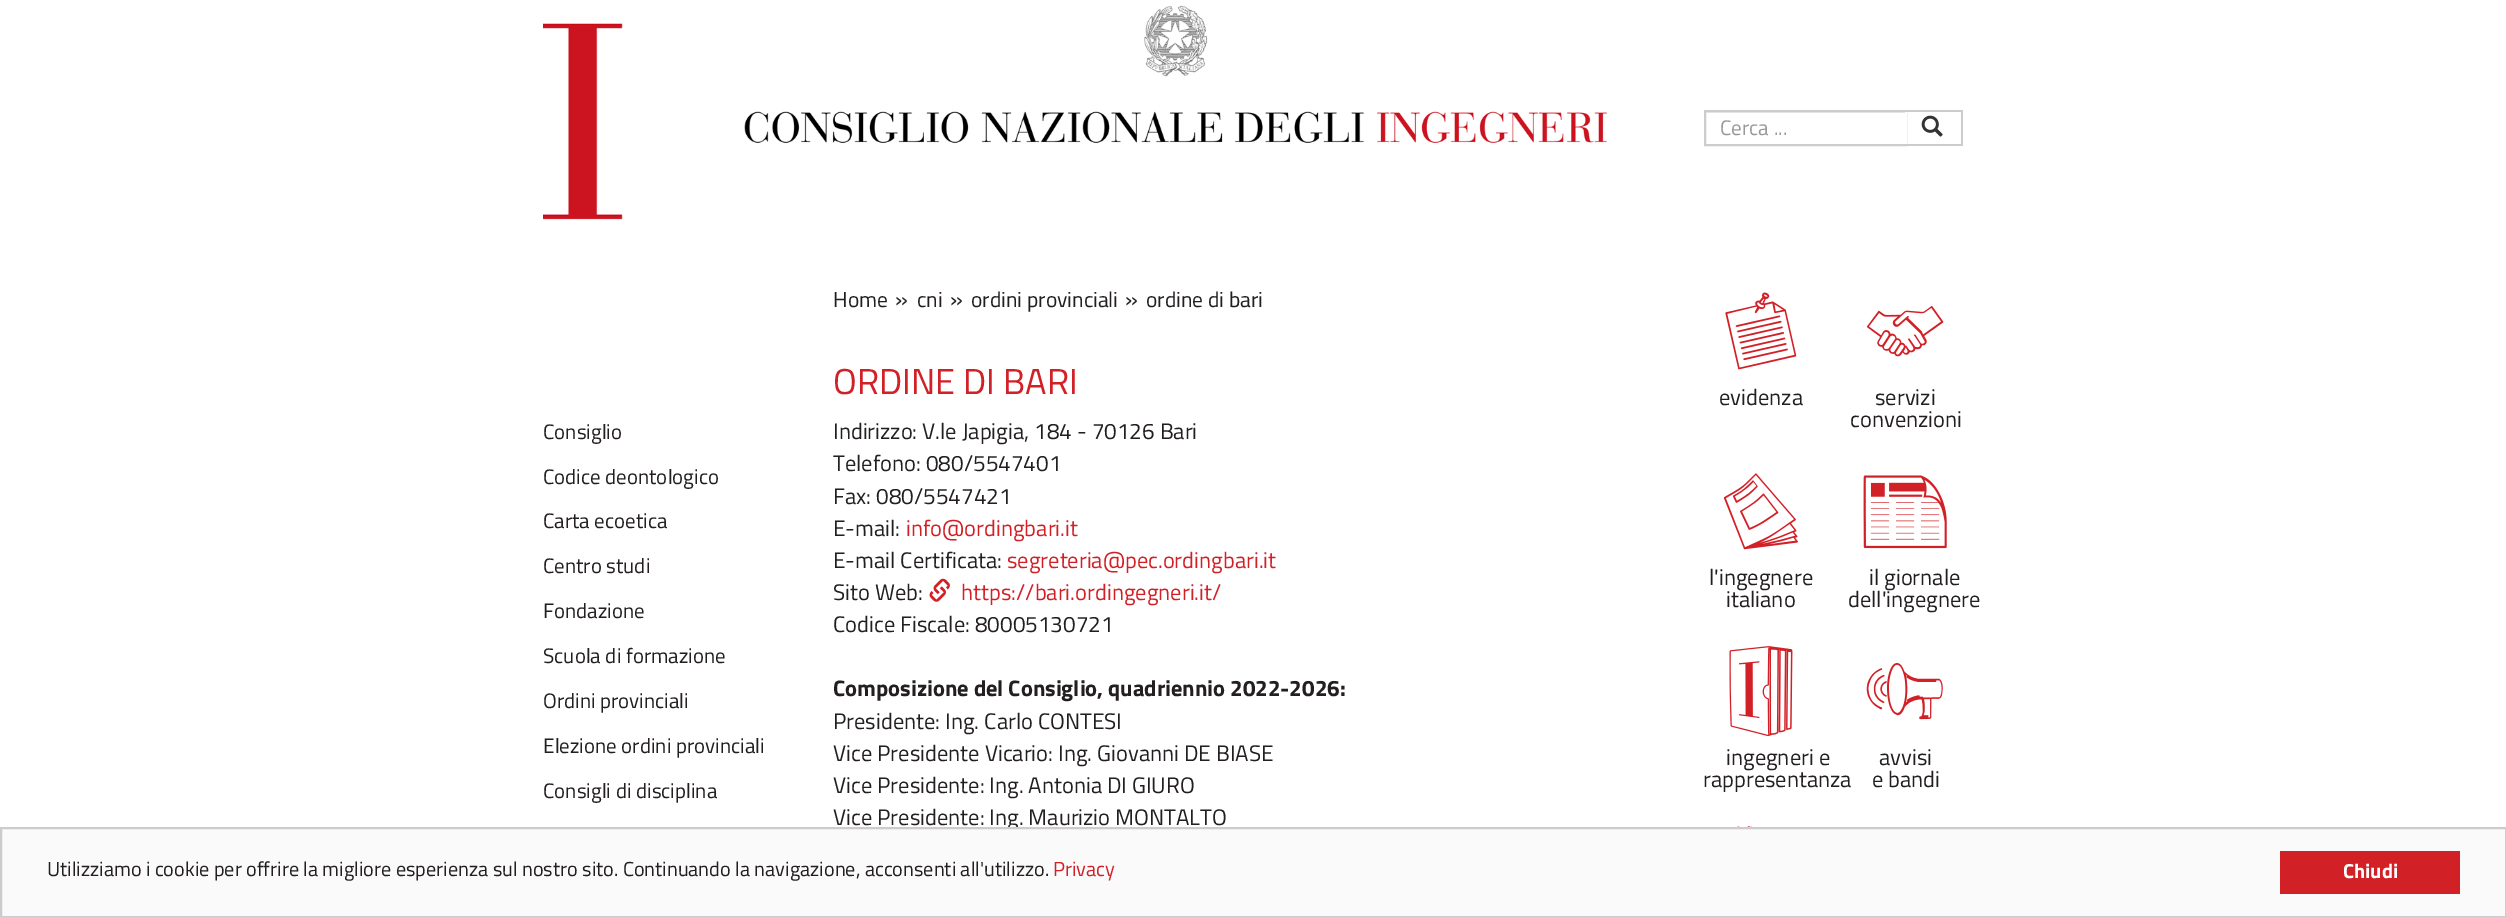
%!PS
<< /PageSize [2506 917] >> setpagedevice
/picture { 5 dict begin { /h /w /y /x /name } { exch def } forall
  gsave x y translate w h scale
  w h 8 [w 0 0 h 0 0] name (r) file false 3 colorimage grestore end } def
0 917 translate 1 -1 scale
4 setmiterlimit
1 setgray
0 0 2506 917 rectfill
(img1.rgb) 543 5 1064 215 picture
0.925 setgray
1706 112 199 1 rectfill
0.8 setgray
2 setlinewidth
1705 111 201 34 rectstroke
/TitilliumWeb-Regular [21 0 0 -21 0 0] selectfont
0.6 setgray
1720 135 moveto (Cerca ...) show
1 setgray
1905 112 2 32 rectfill
0.8 setgray
1905 110 57 2 rectfill
1961 110 2 36 rectfill
1905 144 57 2 rectfill
(img2.rgb) 1921 115 22 22 picture
/TitilliumWeb-Regular [21.5 0 0 -21.5 0 0] selectfont
0.137 0.122 0.125 setrgbcolor
833 307 moveto (Home) show
/TitilliumWeb-Regular [24 0 0 -24 0 0] selectfont
895 307 moveto (») show
/TitilliumWeb-Regular [21.5 0 0 -21.5 0 0] selectfont
917 307 moveto (cni) show
/TitilliumWeb-Regular [24 0 0 -24 0 0] selectfont
950 307 moveto (») show
/TitilliumWeb-Regular [21.5 0 0 -21.5 0 0] selectfont
971 307 moveto (ordini provinciali) show
/TitilliumWeb-Regular [24 0 0 -24 0 0] selectfont
1125 307 moveto (») show
/TitilliumWeb-Regular [21.5 0 0 -21.5 0 0] selectfont
1146 307 moveto (ordine di bari) show
/TitilliumWeb-Regular [20.9 0 0 -20.9 0 0] selectfont
543 439 moveto (Consiglio) show
543 484 moveto (Codice deontologico) show
543 528 moveto (Carta ecoetica) show
543 573 moveto (Centro studi) show
543 618 moveto (Fondazione) show
543 663 moveto (Scuola di formazione) show
543 708 moveto (Ordini provinciali) show
543 753 moveto (Elezione ordini provinciali) show
543 798 moveto (Consigli di disciplina) show
/TitilliumWeb-Regular [36 0 0 -36 0 0] selectfont
0.824 0.125 0.153 setrgbcolor
833 394 moveto (ORDINE DI BARI) show
/TitilliumWeb-Regular [22.5 0 0 -22.5 0 0] selectfont
0.137 0.122 0.125 setrgbcolor
833 439 moveto (Indirizzo: V.le Japigia, 184 - 70126 Bari) show
833 471 moveto (Telefono: 080/5547401) show
833 504 moveto (Fax: 080/5547421) show
833 536 moveto (E-mail:) show
0.824 0.125 0.153 setrgbcolor
906 536 moveto (info@ordingbari.it) show
0.137 0.122 0.125 setrgbcolor
833 568 moveto (E-mail Certificata:) show
0.824 0.125 0.153 setrgbcolor
1007 568 moveto (segreteria@pec.ordingbari.it) show
0.137 0.122 0.125 setrgbcolor
833 600 moveto (Sito Web:) show
(img3.rgb) 929 578 21 24 picture
0.824 0.125 0.153 setrgbcolor
961 600 moveto (https://bari.ordingegneri.it/) show
0.137 0.122 0.125 setrgbcolor
833 632 moveto (Codice Fiscale: 80005130721) show
/TitilliumWeb-Bold [22.5 0 0 -22.5 0 0] selectfont
833 696 moveto (Composizione del Consiglio, quadriennio 2022-2026:) show
/TitilliumWeb-Regular [22.5 0 0 -22.5 0 0] selectfont
833 729 moveto (Presidente: Ing. Carlo CONTESI) show
833 761 moveto (Vice Presidente Vicario: Ing. Giovanni DE BIASE) show
833 793 moveto (Vice Presidente: Ing. Antonia DI GIURO) show
833 825 moveto (Vice Presidente: Ing. Maurizio MONTALTO) show
(img4.rgb) 1725 292 72 78 picture
1719 405 moveto (evidenza) show
(img5.rgb) 1866 306 78 51 picture
1875 405 moveto (servizi) show
1850 427 moveto (convenzioni) show
(img6.rgb) 1723 473 75 77 picture
1709 585 moveto (l'ingegnere) show
1726 607 moveto (italiano) show
(img7.rgb) 1863 475 84 74 picture
1869 585 moveto (il giornale) show
1848 607 moveto (dell'ingegnere) show
(img8.rgb) 1729 646 64 91 picture
1726 765 moveto (ingegneri e) show
1703 787 moveto (rappresentanza) show
(img9.rgb) 1866 662 77 58 picture
1879 765 moveto (avvisi) show
1872 787 moveto (e bandi) show
(img10.rgb) 1737 826 15 1 picture
0.98 setgray
newpath 1 828 moveto 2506 828 lineto 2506 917 lineto 1 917 lineto closepath gsave fill grestore
0.8 setgray
stroke
/TitilliumWeb-Regular [20.25 0 0 -20.25 0 0] selectfont
0.137 0.122 0.125 setrgbcolor
47 876 moveto (Utilizziamo i cookie per offrire la migliore esperienza sul nostro sito. Continuando la navigazione, acconsenti all'utilizzo.) show
0.824 0.125 0.153 setrgbcolor
1053 876 moveto (Privacy) show
2280 851 180 43 rectfill
/TitilliumWeb-Bold [20.25 0 0 -20.25 0 0] selectfont
1 setgray
2343 878 moveto (Chiudi) show
showpage
